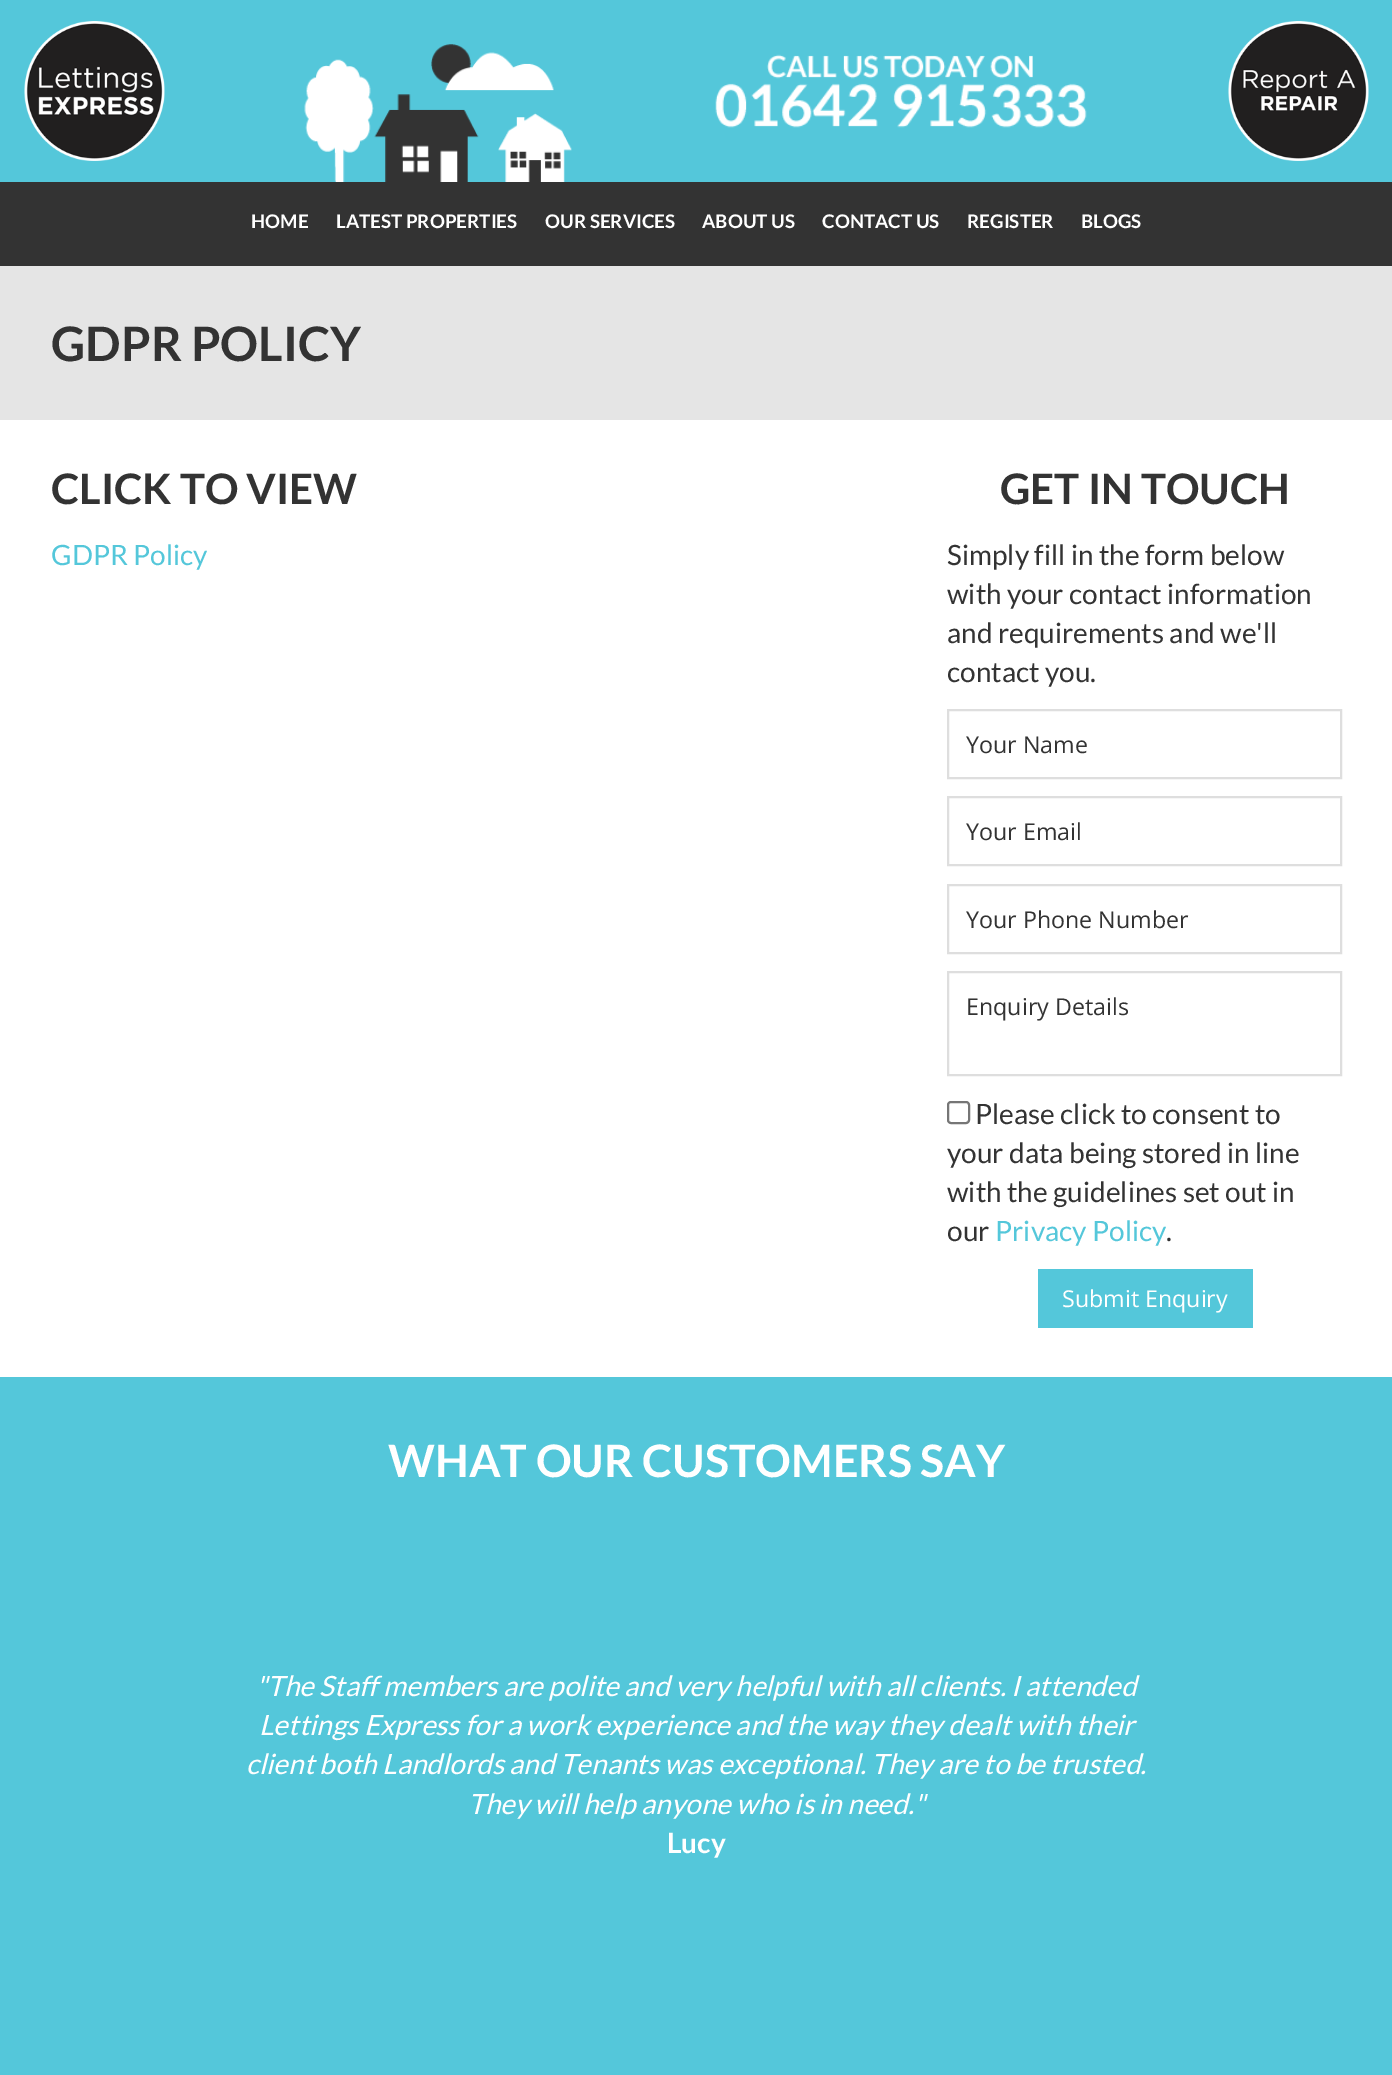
%!PS
<< /PageSize [1392 2075] >> setpagedevice
/roundrect { 5 dict begin { /r /h /w /y /x } { exch def } forall
  x r add y moveto x w add y 2 copy h add r arct x w add y h add x 1 index r arct
  x y h add x y r arct x y 2 copy exch w add exch r arct closepath end } def
/picture { 5 dict begin { /h /w /y /x /name } { exch def } forall
  gsave x y translate w h scale
  w h 8 [w 0 0 h 0 0] name (r) file false 3 colorimage grestore end } def
0 2075 translate 1 -1 scale
4 setmiterlimit
0.329 0.78 0.855 setrgbcolor
0 0 1392 2075 rectfill
(img1.rgb) 24 21 141 140 picture
(img2.rgb) 304 44 268 138 picture
(img3.rgb) 715 54 372 74 picture
(img4.rgb) 1228 21 141 140 picture
0.2 setgray
0 182 1392 84 rectfill
/Lato-Bold [18.75 0 0 -18.75 0 0] selectfont
1 setgray
251 228 moveto (HOME) show
336 228 moveto (LATEST PROPERTIES) show
545 228 moveto (OUR SERVICES) show
702 228 moveto (ABOUT US) show
822 228 moveto (CONTACT US) show
967 228 moveto (REGISTER) show
1081 228 moveto (BLOGS) show
0 420 1392 957 rectfill
0.898 setgray
0 266 1392 154 rectfill
/Lato-Bold [47.5 0 0 -47.5 0 0] selectfont
0.2 setgray
51 361 moveto (GDPR POLICY) show
/Lato-Bold [42 0 0 -42 0 0] selectfont
51 504 moveto (CLICK TO VIEW) show
/Lato-Regular [28 0 0 -28 0 0] selectfont
0.329 0.78 0.855 setrgbcolor
51 565 moveto (GDPR Policy) show
/Lato-Bold [42 0 0 -42 0 0] selectfont
0.2 setgray
1000 504 moveto (GET IN TOUCH) show
/Lato-Regular [28 0 0 -28 0 0] selectfont
947 565 moveto (Simply fill in the form below) show
947 604 moveto (with your contact information) show
947 643 moveto (and requirements and we'll) show
947 682 moveto (contact you.) show
0.871 setgray
2 setlinewidth
948 710 393 68 rectstroke
/OpenSans-Regular [23.25 0 0 -23.25 0 0] selectfont
0.2 setgray
966 753 moveto (Your Name) show
0.871 setgray
948 797 393 68 rectstroke
0.2 setgray
966 840 moveto (Your Email) show
0.871 setgray
948 885 393 68 rectstroke
0.2 setgray
966 928 moveto (Your Phone Number) show
0.871 setgray
948 972 393 103 rectstroke
0.2 setgray
966 1015 moveto (Enquiry Details) show
0.463 setgray
948 1102 21 21 3 roundrect stroke
/Lato-Regular [28 0 0 -28 0 0] selectfont
0.2 setgray
975 1124 moveto (Please click to consent to) show
947 1163 moveto (your data being stored in line) show
947 1202 moveto (with the guidelines set out in) show
947 1241 moveto (our) show
0.329 0.78 0.855 setrgbcolor
995 1241 moveto (Privacy Policy) show
0.2 setgray
1166 1241 moveto (.) show
0.329 0.78 0.855 setrgbcolor
1038 1269 215 59 rectfill
/OpenSans-Regular [23.25 0 0 -23.25 0 0] selectfont
1 setgray
1062 1307 moveto (Submit Enquiry) show
/Lato-Bold [44.75 0 0 -44.75 0 0] selectfont
388 1477 moveto (WHAT OUR CUSTOMERS SAY) show
/Lato-Italic [28 0 0 -28 0 0] selectfont
256 1696 moveto ("The Staff members are polite and very helpful with all clients. I attended) show
259 1735 moveto (Lettings Express for a work experience and the way they dealt with their) show
246 1774 moveto (client both Landlords and Tenants was exceptional. They are to be trusted.) show
468 1814 moveto (They will help anyone who is in need.") show
/Lato-Bold [28 0 0 -28 0 0] selectfont
667 1853 moveto (Lucy) show
showpage
